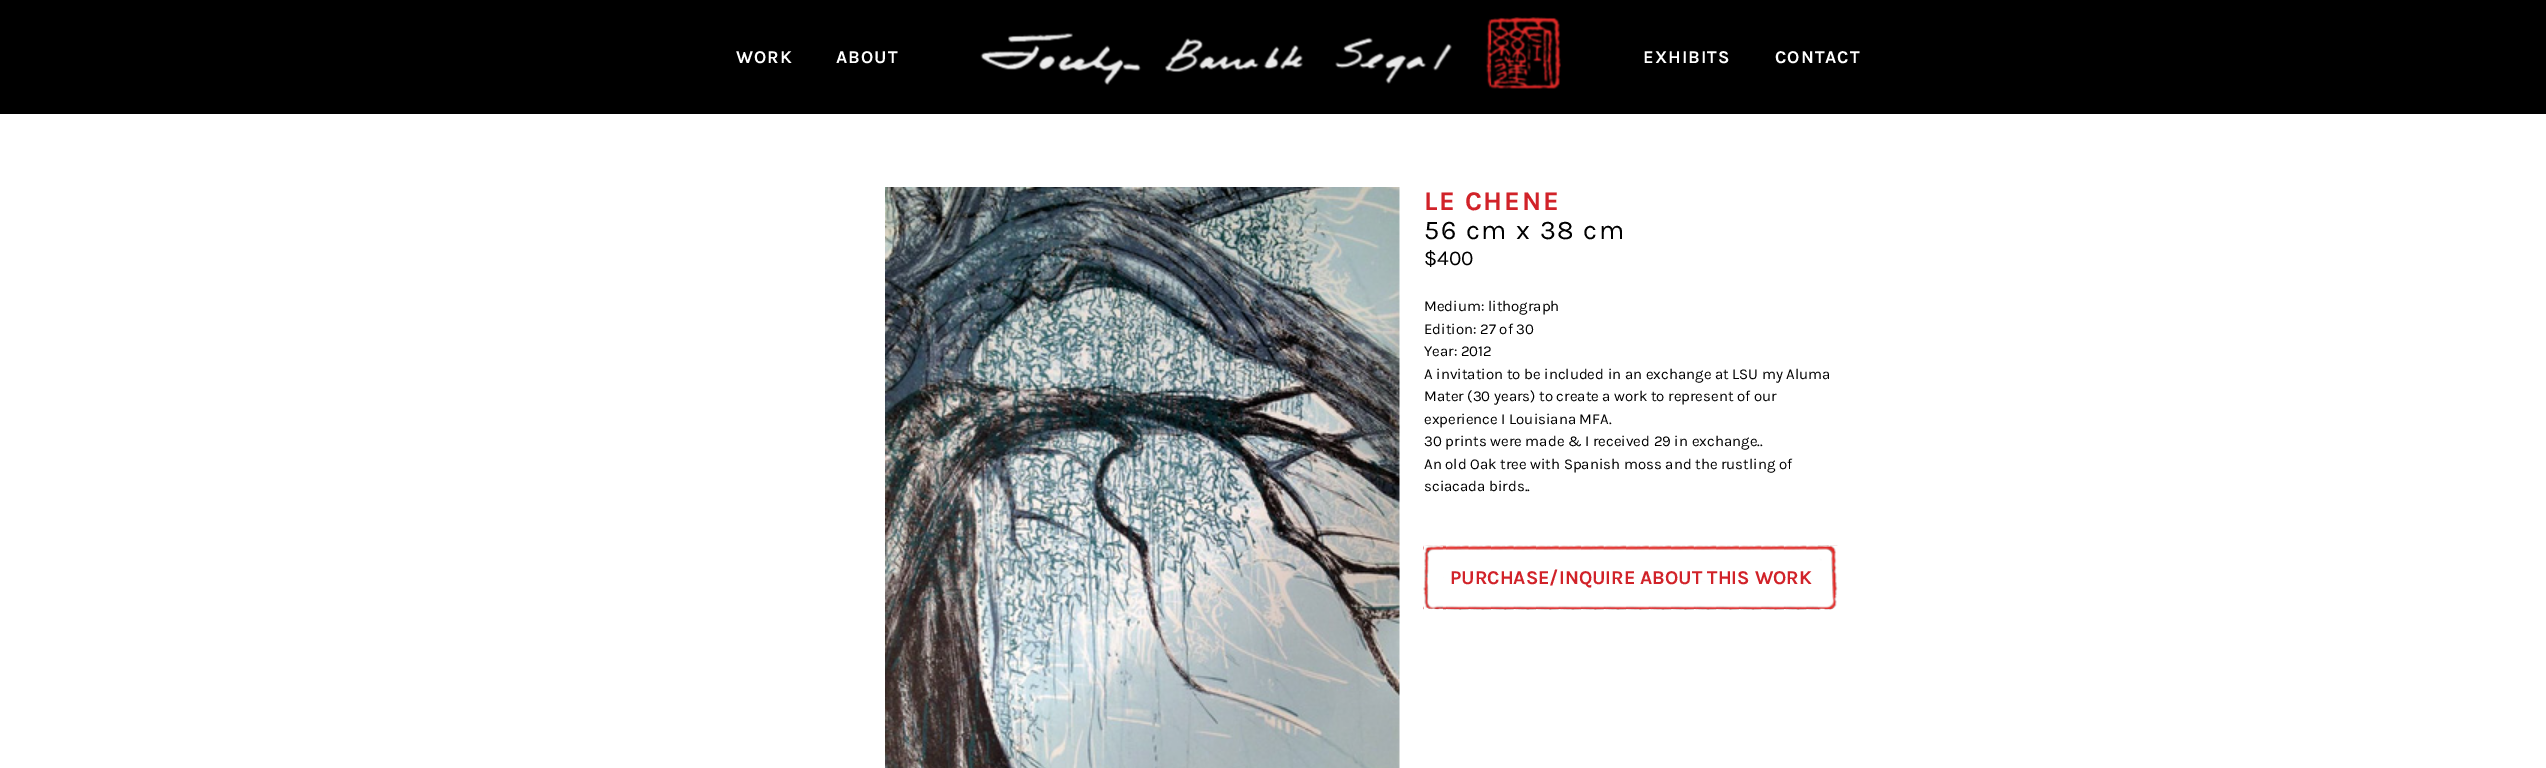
%!PS
<< /PageSize [2546 768] >> setpagedevice
/picture { 5 dict begin { /h /w /y /x /name } { exch def } forall
  gsave x y translate w h scale
  w h 8 [w 0 0 h 0 0] name (r) file false 3 colorimage grestore end } def
0 768 translate 1 -1 scale
4 setmiterlimit
1 setgray
0 0 2546 768 rectfill
0 setgray
0 0 2546 114 rectfill
/Karla-Bold [18 0 0 -18 0 0] selectfont
1 setgray
736 63 moveto 1 0 (WORK) ashow
836 63 moveto 1 0 (ABOUT) ashow
(img1.rgb) 980 17 581 73 picture
1643 63 moveto 1 0 (EXHIBITS) ashow
1775 63 moveto 1 0 (CONTACT) ashow
(img2.rgb) 885 187 515 581 picture
/Karla-Bold [27 0 0 -27 0 0] selectfont
0.82 0.133 0.161 setrgbcolor
1424 210 moveto 1.6 0 (LE CHENE) ashow
/Karla-Regular [27 0 0 -27 0 0] selectfont
0 setgray
1424 239 moveto 1.6 0 (56 cm x 38 cm) ashow
/Karla-Regular [21 0 0 -21 0 0] selectfont
1424 265 moveto ($400) show
/Karla-Regular [15 0 0 -15 0 0] selectfont
1424 311 moveto (Medium: lithograph) show
1424 334 moveto (Edition: 27 of 30) show
1424 356 moveto (Year: 2012) show
1424 379 moveto (A invitation to be included in an exchange at LSU my Aluma) show
1424 401 moveto (Mater \(30 years\) to create a work to represent of our) show
1424 424 moveto (experience I Louisiana MFA.) show
1424 446 moveto (30 prints were made & I received 29 in exchange..) show
1424 469 moveto (An old Oak tree with Spanish moss and the rustling of) show
1424 491 moveto (sciacada birds..) show
(img3.rgb) 1423 545 415 65 picture
1 setgray
1424 546 19 64 rectfill
(img4.rgb) 1423 546 20 64 picture
/Karla-Bold [19.5 0 0 -19.5 0 0] selectfont
0.82 0.133 0.161 setrgbcolor
1450 584 moveto (PURCHASE/INQUIRE ABOUT THIS WORK) show
1 setgray
1818 546 20 64 rectfill
(img5.rgb) 1818 545 20 65 picture
showpage
